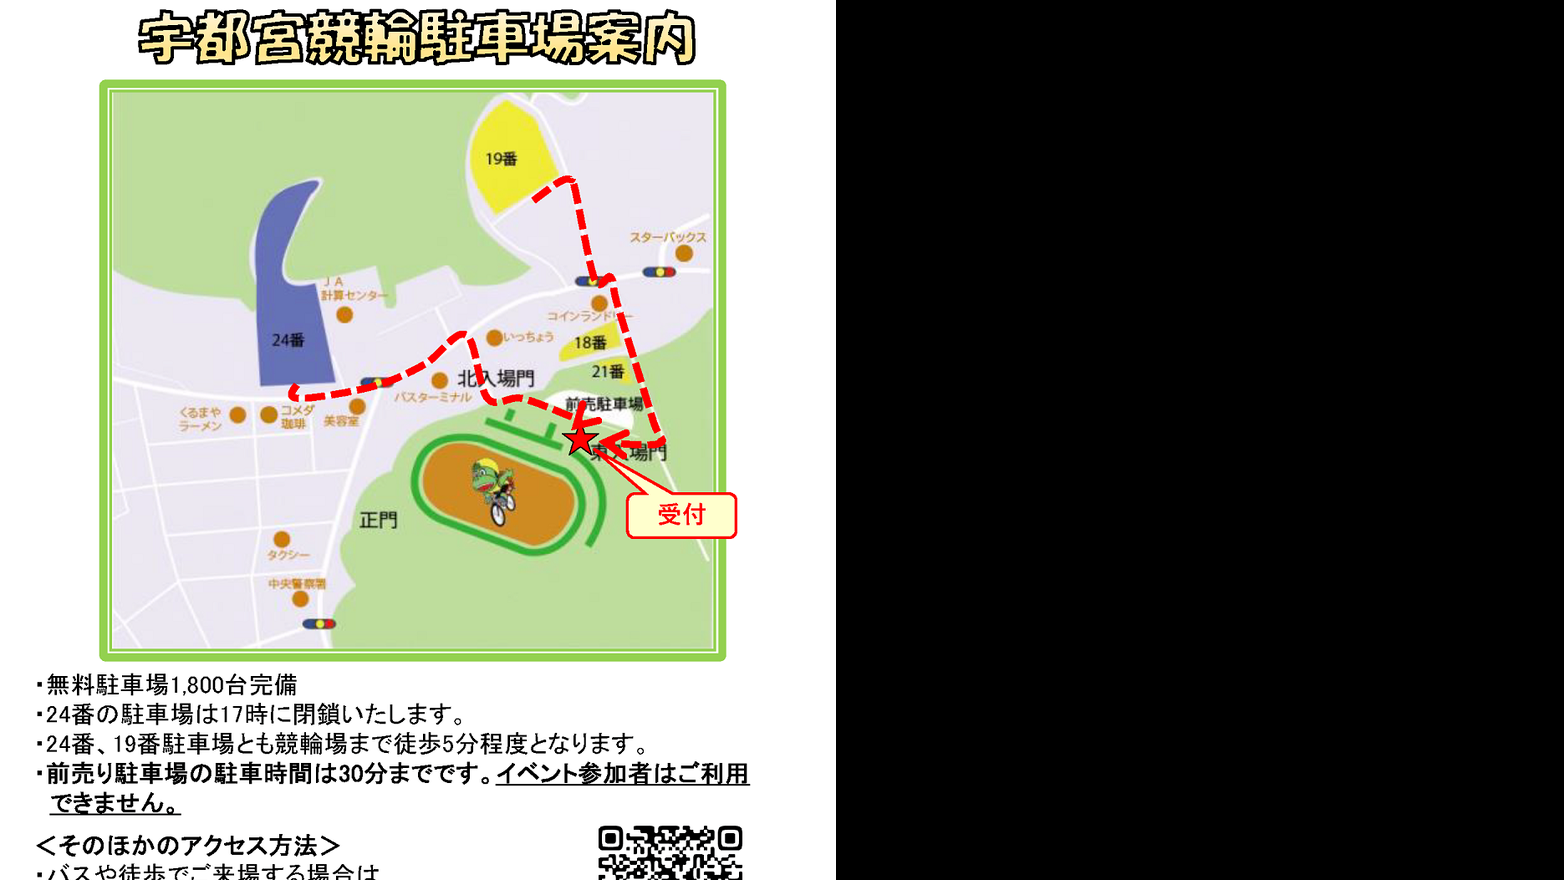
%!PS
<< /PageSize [1564 880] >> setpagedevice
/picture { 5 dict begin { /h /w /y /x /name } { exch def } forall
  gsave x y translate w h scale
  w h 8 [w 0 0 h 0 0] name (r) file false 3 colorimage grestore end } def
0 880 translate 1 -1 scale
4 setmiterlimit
0 setgray
0 0 1564 880 rectfill
(img1.rgb) 0 0 836 880 picture
showpage
